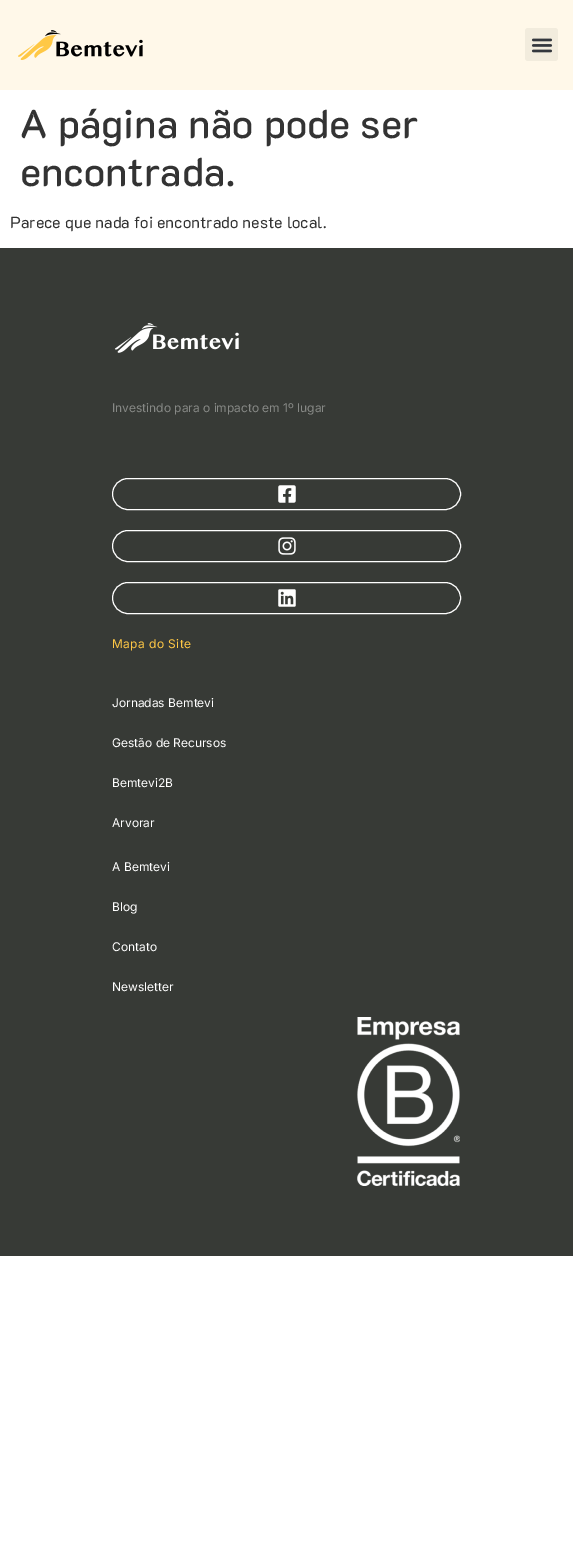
%!PS
<< /PageSize [573 1549] >> setpagedevice
/roundrect { 5 dict begin { /r /h /w /y /x } { exch def } forall
  x r add y moveto x w add y 2 copy h add r arct x w add y h add x 1 index r arct
  x y h add x y r arct x y 2 copy exch w add exch r arct closepath end } def
/picture { 5 dict begin { /h /w /y /x /name } { exch def } forall
  gsave x y translate w h scale
  w h 8 [w 0 0 h 0 0] name (r) file false 3 colorimage grestore end } def
0 1549 translate 1 -1 scale
4 setmiterlimit
1 setgray
0 0 573 1549 rectfill
1 0.973 0.914 setrgbcolor
0 0 573 90 rectfill
(img1.rgb) 18 30 125 30 picture
0.949 0.925 0.867 setrgbcolor
525 28 33 33 3 roundrect fill
(img2.rgb) 531 38 22 15 picture
/K2D-Medium [40 0 0 -40 0 0] selectfont
0.2 setgray
20 138 moveto (A página não pode ser) show
20 186 moveto (encontrada.) show
/K2D-Regular [16 0 0 -16 0 0] selectfont
10 228 moveto (Parece que nada foi encontrado neste local.) show
0.216 0.227 0.212 setrgbcolor
0 248 573 1008 rectfill
(img3.rgb) 114 323 125 30 picture
/Inter-Regular [12 0 0 -12 0 0] selectfont
0.529 0.537 0.525 setrgbcolor
112 412 moveto (Investindo para o impacto em 1º lugar) show
1 setgray
112.5 478.5 348 31 15.5 roundrect stroke
(img4.rgb) 278 485 18 18 picture
112.5 530.5 348 31 15.5 roundrect stroke
(img5.rgb) 278 537 18 18 picture
112.5 582.5 348 31 15.5 roundrect stroke
(img6.rgb) 278 589 18 18 picture
1 0.784 0.271 setrgbcolor
112 648 moveto 0.4 0 (Mapa do Site) ashow
1 setgray
112 707 moveto (Jornadas Bemtevi) show
112 747 moveto (Gestão de Recursos) show
112 787 moveto (Bemtevi2B) show
112 827 moveto (Arvorar) show
112 871 moveto (A Bemtevi) show
112 911 moveto (Blog) show
112 951 moveto (Contato) show
112 991 moveto (Newsletter) show
(img7.rgb) 357 1017 103 169 picture
showpage
